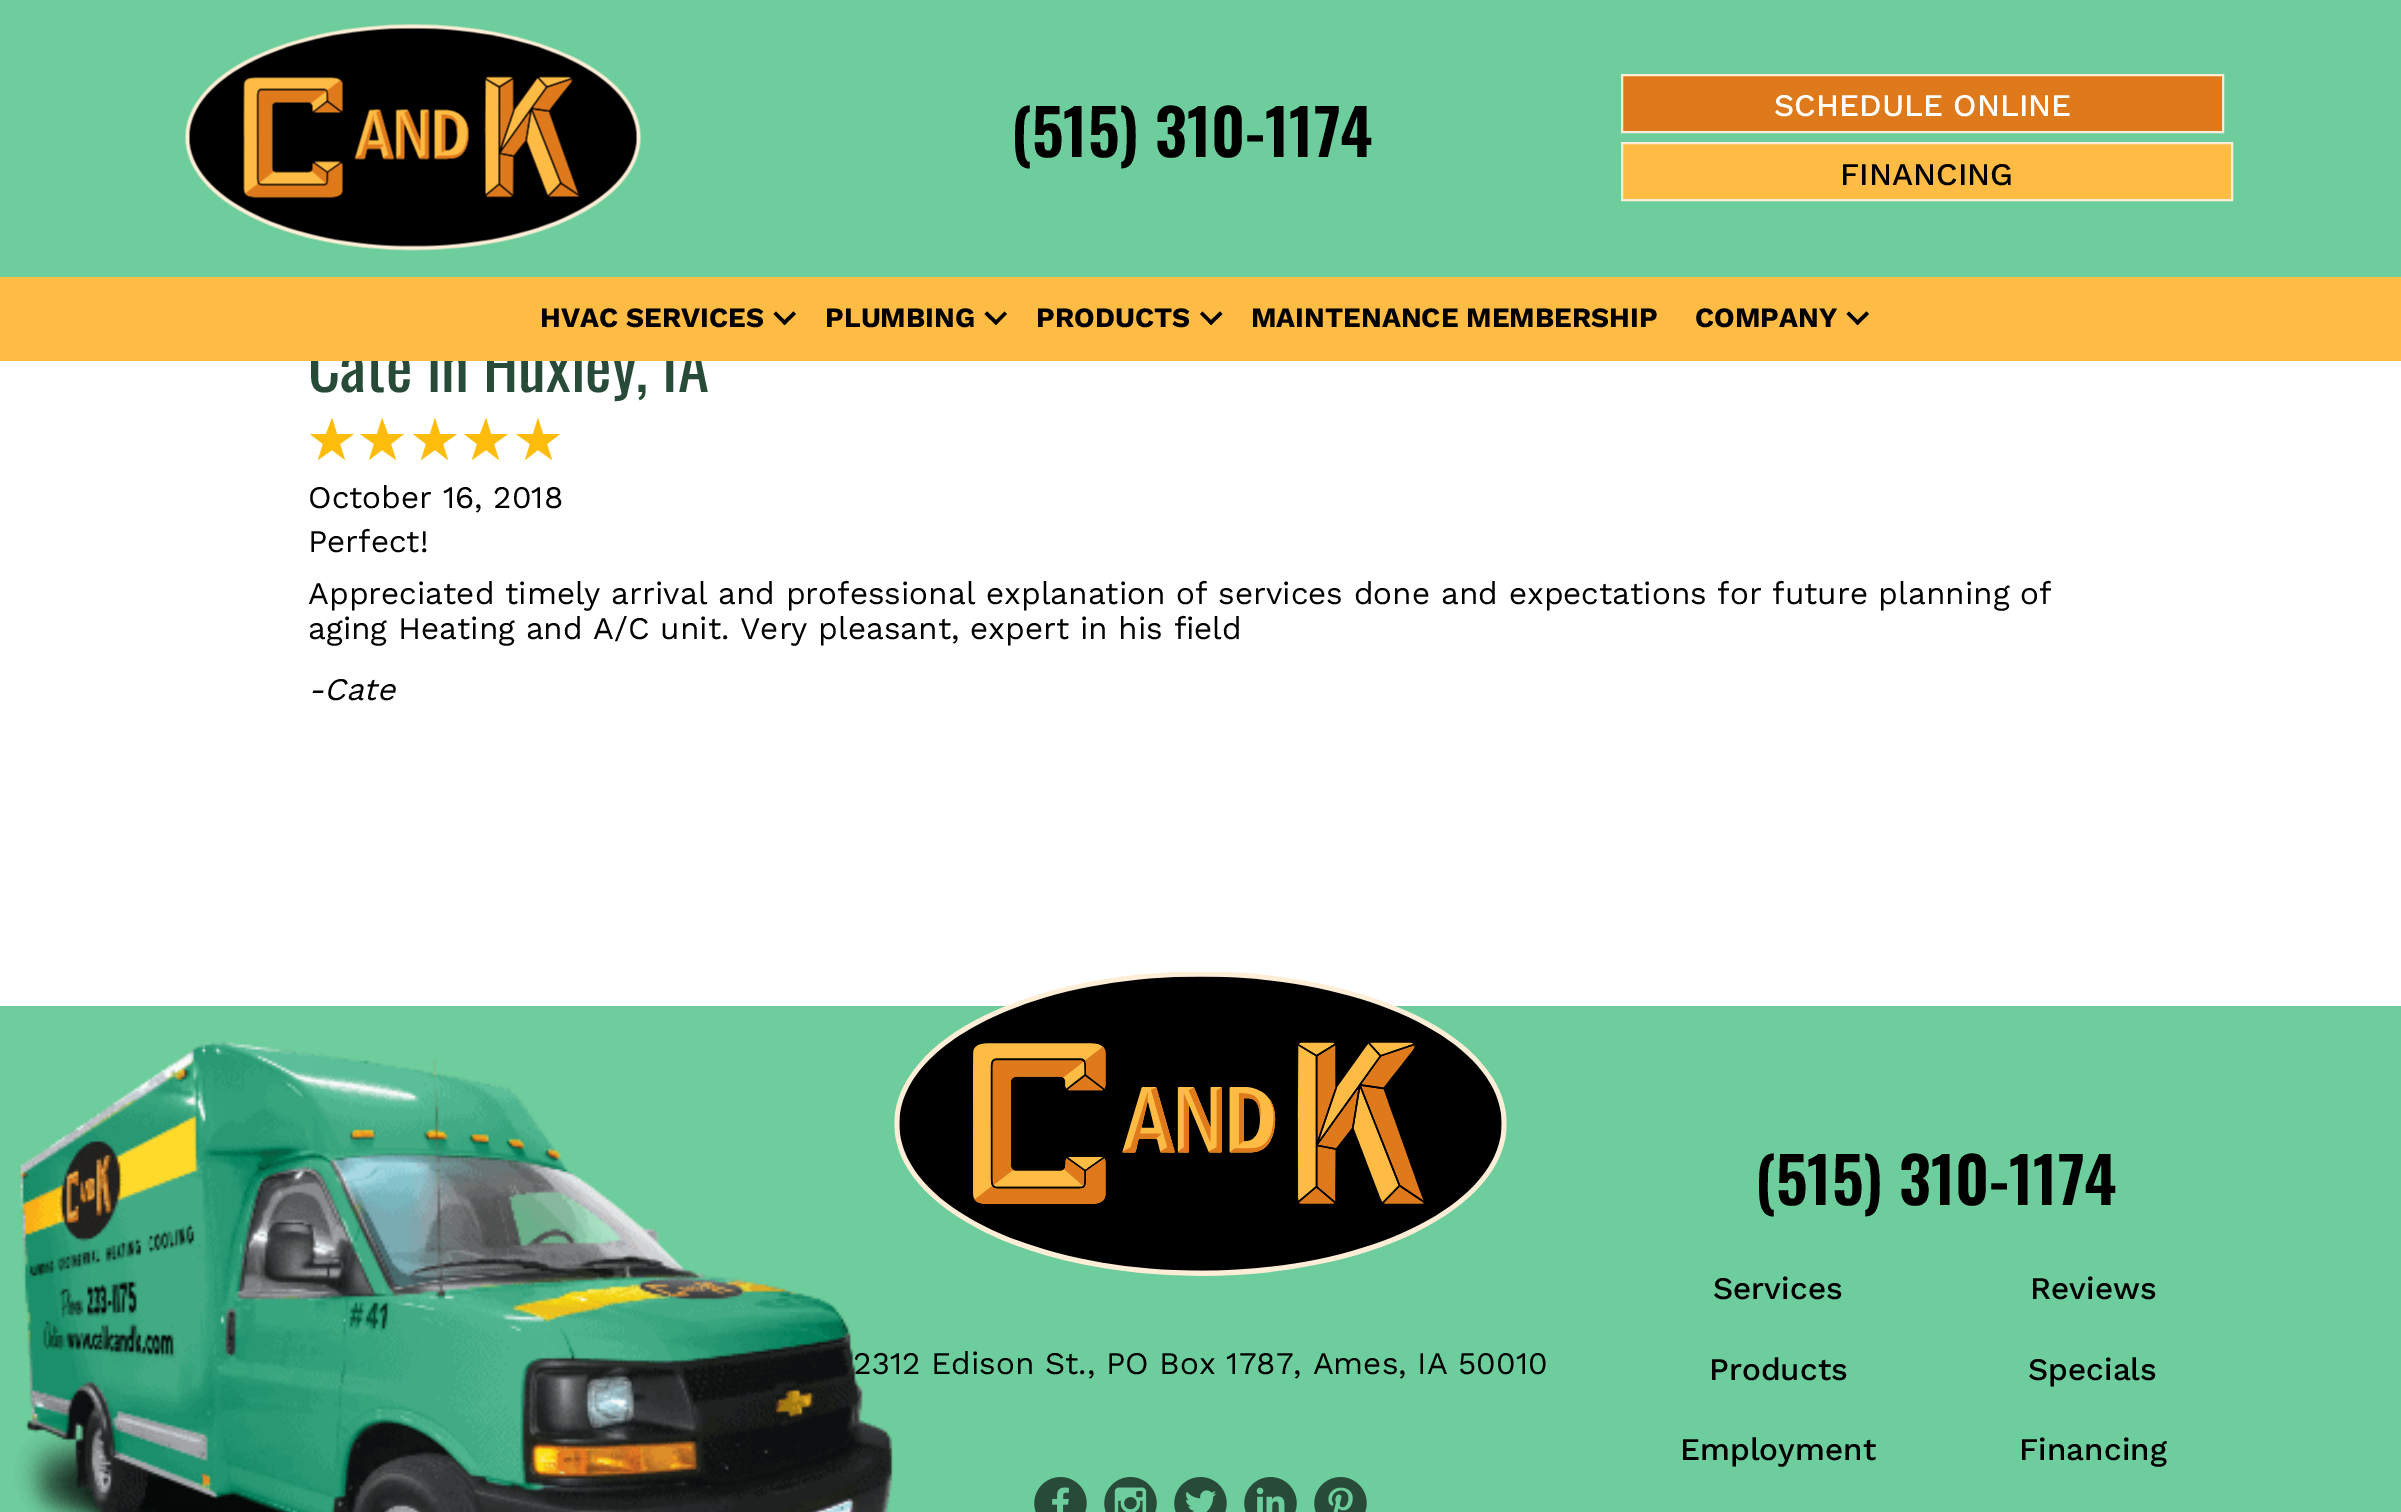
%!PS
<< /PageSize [2401 1512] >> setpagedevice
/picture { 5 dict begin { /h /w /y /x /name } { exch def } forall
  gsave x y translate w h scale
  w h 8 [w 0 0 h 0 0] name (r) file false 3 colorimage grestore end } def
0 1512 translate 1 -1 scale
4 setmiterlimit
1 setgray
0 0 2401 1512 rectfill
0.431 0.804 0.612 setrgbcolor
0 0 2401 277 rectfill
(img1.rgb) 185 24 456 227 picture
/Oswald-SemiBold [63 0 0 -63 0 0] selectfont
0 setgray
1011 157 moveto (\(515\) 310-1174) show
0.875 0.478 0.11 setrgbcolor
newpath 1622 75 moveto 2223 75 lineto 2223 132 lineto 1622 132 lineto closepath gsave fill grestore
1 0.933 0.843 setrgbcolor
2 setlinewidth
stroke
/WorkSans-Medium [31.5 0 0 -31.5 0 0] selectfont
1 setgray
1774 116 moveto (SCHEDULE ONLINE) show
1 0.737 0.271 setrgbcolor
newpath 1622 143 moveto 2232 143 lineto 2232 200 lineto 1622 200 lineto closepath gsave fill grestore
1 0.933 0.843 setrgbcolor
stroke
0 setgray
1840 185 moveto (FINANCING) show
/Oswald-Regular [63 0 0 -63 0 0] selectfont
0.157 0.29 0.22 setrgbcolor
308 392 moveto (Cate in Huxley, IA) show
1 0.737 0.271 setrgbcolor
0 277 2401 84 rectfill
/WorkSans-Bold [28 0 0 -28 0 0] selectfont
0 setgray
540 327 moveto (HVAC SERVICES) show
newpath 793.5 311.5 moveto 796 314 lineto 784.5 325 lineto 782 322.5 lineto closepath fill
newpath 776 311.5 moveto 787 322.5 lineto 784.5 325 lineto 773.5 314 lineto closepath fill
825 327 moveto (PLUMBING) show
newpath 1004.5 311.5 moveto 1007 314 lineto 996 325 lineto 993.5 322.5 lineto closepath fill
newpath 987 311.5 moveto 998.5 322.5 lineto 996 325 lineto 984.5 314 lineto closepath fill
1036 327 moveto (PRODUCTS) show
newpath 1220 311.5 moveto 1222.5 314 lineto 1211 325 lineto 1208.5 322.5 lineto closepath fill
newpath 1202.5 311.5 moveto 1213.5 322.5 lineto 1211 325 lineto 1200 314 lineto closepath fill
1251 327 moveto (MAINTENANCE MEMBERSHIP) show
1695 327 moveto (COMPANY) show
newpath 1866.5 311.5 moveto 1869 314 lineto 1857.5 325 lineto 1855 322.5 lineto closepath fill
newpath 1849 311.5 moveto 1860 322.5 lineto 1857.5 325 lineto 1846.5 314 lineto closepath fill
1 0.737 0.043 setrgbcolor
newpath 332 418 moveto 337 434 lineto 332 418 lineto 337 434 lineto 354 434 lineto 340 444 lineto 345 460 lineto 332 450 lineto 318 460 lineto 323 444 lineto 310 434 lineto 326 434 lineto closepath fill
newpath 382 418 moveto 388 434 lineto 382 418 lineto 388 434 lineto 404 434 lineto 391 444 lineto 396 460 lineto 382 450 lineto 369 460 lineto 374 444 lineto 360 434 lineto 377 434 lineto closepath fill
newpath 435 418 moveto 440 434 lineto 435 418 lineto 440 434 lineto 457 434 lineto 443 444 lineto 448 460 lineto 435 450 lineto 421 460 lineto 426 444 lineto 413 434 lineto 430 434 lineto closepath fill
newpath 486 418 moveto 491 434 lineto 486 418 lineto 491 434 lineto 508 434 lineto 494 444 lineto 499 460 lineto 486 450 lineto 472 460 lineto 477 444 lineto 464 434 lineto 480 434 lineto closepath fill
newpath 538 418 moveto 543 434 lineto 538 418 lineto 543 434 lineto 560 434 lineto 547 444 lineto 552 460 lineto 538 450 lineto 525 460 lineto 530 444 lineto 516 434 lineto 533 434 lineto closepath fill
/WorkSans-Regular [31.5 0 0 -31.5 0 0] selectfont
0 setgray
308 508 moveto (October 16, 2018) show
308 552 moveto (Perfect!) show
308 604 moveto (Appreciated timely arrival and professional explanation of services done and expectations for future planning of) show
308 639 moveto (aging Heating and A/C unit. Very pleasant, expert in his field) show
/WorkSans-Italic [31.5 0 0 -31.5 0 0] selectfont
308 700 moveto (-Cate) show
0.431 0.804 0.612 setrgbcolor
0 1006 2401 506 rectfill
/WorkSans-Regular [31.5 0 0 -31.5 0 0] selectfont
0 setgray
853 1374 moveto (2312 Edison St., PO Box 1787, Ames, IA 50010) show
(img2.rgb) 14 1042 879 470 picture
(img3.rgb) 894 972 613 304 picture
(img4.rgb) 1034 1477 53 35 picture
(img5.rgb) 1104 1477 53 35 picture
(img6.rgb) 1174 1477 53 35 picture
(img7.rgb) 1244 1477 53 35 picture
(img8.rgb) 1314 1477 53 35 picture
/Oswald-SemiBold [63 0 0 -63 0 0] selectfont
1755 1205 moveto (\(515\) 310-1174) show
/WorkSans-Medium [31.5 0 0 -31.5 0 0] selectfont
1713 1299 moveto (Services) show
1709 1380 moveto (Products) show
1680 1460 moveto (Employment) show
2030 1299 moveto (Reviews) show
2028 1380 moveto (Specials) show
2019 1460 moveto (Financing) show
showpage
